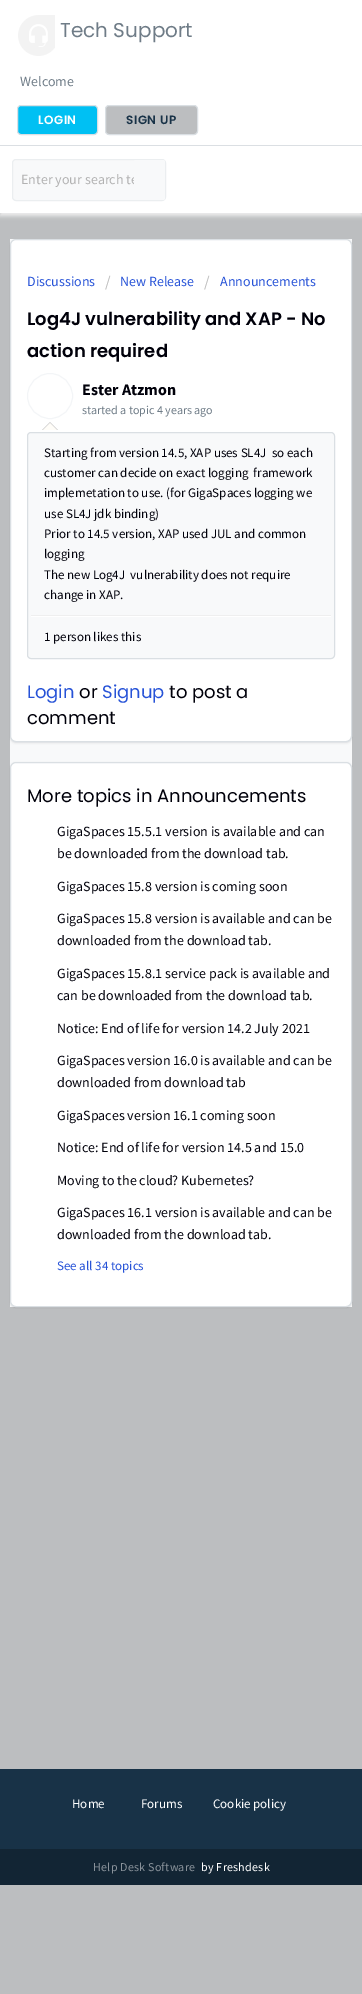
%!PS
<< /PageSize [362 1994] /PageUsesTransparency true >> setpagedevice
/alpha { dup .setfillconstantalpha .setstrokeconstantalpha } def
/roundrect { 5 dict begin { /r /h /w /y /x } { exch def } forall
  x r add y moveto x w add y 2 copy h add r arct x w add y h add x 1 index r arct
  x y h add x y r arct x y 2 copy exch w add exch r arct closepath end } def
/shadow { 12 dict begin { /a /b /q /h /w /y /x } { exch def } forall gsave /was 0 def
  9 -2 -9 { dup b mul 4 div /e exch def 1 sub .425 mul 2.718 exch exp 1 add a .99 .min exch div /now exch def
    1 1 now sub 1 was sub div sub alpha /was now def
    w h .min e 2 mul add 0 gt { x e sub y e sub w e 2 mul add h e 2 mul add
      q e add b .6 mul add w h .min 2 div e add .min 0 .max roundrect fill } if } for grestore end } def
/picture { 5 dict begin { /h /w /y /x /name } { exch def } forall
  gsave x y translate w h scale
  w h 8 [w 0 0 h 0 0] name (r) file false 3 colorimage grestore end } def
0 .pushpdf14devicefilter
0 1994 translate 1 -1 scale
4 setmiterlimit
0.737 0.745 0.753 setrgbcolor
0 0 362 1994 rectfill
1 setgray
0 0 362 145 rectfill
0.855 0.875 0.89 setrgbcolor
0 145 362 1 rectfill
(img1.rgb) 18 15 37 41 picture
/Poppins-Regular [20 0 0 -20 0 0] selectfont
0.435 0.486 0.529 setrgbcolor
60 37 moveto (Tech Support) show
/SourceSansPro-Regular [14 0 0 -14 0 0] selectfont
20 86 moveto (Welcome) show
0 0.753 0.953 setrgbcolor
17.5 105.5 80 29 3.5 roundrect gsave fill grestore
0.855 0.875 0.89 setrgbcolor
stroke
/Poppins-SemiBold [12 0 0 -12 0 0] selectfont
1 setgray
38 124 moveto 0.5 0 (LOGIN) ashow
0.737 0.745 0.753 setrgbcolor
105.5 105.5 92 29 3.5 roundrect gsave fill grestore
0.855 0.875 0.89 setrgbcolor
stroke
0.094 0.196 0.278 setrgbcolor
126 124 moveto 0.5 0 (SIGN UP) ashow
0.933 setgray
0 149 362 67 0 2 1 shadow
1 setgray
0 146 362 67 rectfill
0.973 0.976 0.98 setrgbcolor
12.5 159.5 153 41 3.5 roundrect gsave fill grestore
0.922 0.933 0.941 setrgbcolor
stroke
/SourceSansPro-Regular [14 0 0 -14 0 0] selectfont
0.698 setgray
21 184 moveto (Enter your search te) show
0.973 0.976 0.98 setrgbcolor
134 160 31 40 2 roundrect fill
10 239 342 1068 rectfill
0.247 0.247 0.267 setrgbcolor
10 240 342 503 6 1 0.15 shadow
1 setgray
10.5 239.5 341 502 5.5 roundrect gsave fill grestore
0.855 0.875 0.89 setrgbcolor
stroke
0.153 0.325 0.843 setrgbcolor
27 286 moveto (Discussions) show
/SourceSansPro-Regular [16 0 0 -16 0 0] selectfont
0.733 setgray
105 287 moveto (/) show
/SourceSansPro-Regular [14 0 0 -14 0 0] selectfont
0.153 0.325 0.843 setrgbcolor
120 286 moveto (New Release) show
/SourceSansPro-Regular [16 0 0 -16 0 0] selectfont
0.733 setgray
204 287 moveto (/) show
/SourceSansPro-Regular [14 0 0 -14 0 0] selectfont
0.153 0.325 0.843 setrgbcolor
220 286 moveto (Announcements) show
/Poppins-SemiBold [18 0 0 -18 0 0] selectfont
0 0 0.039 setrgbcolor
27 325 moveto (Log4J vulnerability and XAP - No) show
27 357 moveto (action required) show
0.953 0.961 0.969 setrgbcolor
newpath 50 396 22.5 0 360 arc closepath stroke
0.8 setgray
newpath 58 430 moveto 42 430 lineto 50 422 lineto closepath fill
1 0.992 0.973 setrgbcolor
newpath 57 430 moveto 43 430 lineto 50 423 lineto closepath fill
/SourceSansPro-Bold [16 0 0 -16 0 0] selectfont
0 0 0.039 setrgbcolor
82 395 moveto (Ester Atzmon) show
/SourceSansPro-Regular [12 0 0 -12 0 0] selectfont
0.435 0.486 0.529 setrgbcolor
82 414 moveto (started a topic 4 years ago) show
0.973 0.976 0.98 setrgbcolor
27.5 432.5 307 226 3.5 roundrect gsave fill grestore
0.855 0.875 0.89 setrgbcolor
stroke
/SourceSansPro-Regular [13 0 0 -13 0 0] selectfont
0 0 0.039 setrgbcolor
44 457 moveto (Starting from version 14.5, XAP uses SL4J  so each) show
44 477 moveto (customer can decide on exact logging  framework) show
44 497 moveto (implemetation to use. \(for GigaSpaces logging we) show
44 518 moveto (use SL4J jdk binding\)) show
44 538 moveto (Prior to 14.5 version, XAP used JUL and common) show
44 558 moveto (logging) show
44 579 moveto (The new Log4J  vulnerability does not require) show
44 599 moveto (change in XAP.) show
0.937 setgray
31 615 300 1 rectfill
1 setgray
31 616 300 1 rectfill
0 0 0.039 setrgbcolor
44 641 moveto (1 person likes this) show
/Poppins-Regular [18 0 0 -18 0 0] selectfont
0.153 0.325 0.843 setrgbcolor
27 698 moveto (Login) show
0 0 0.039 setrgbcolor
79 698 moveto (or) show
0.153 0.325 0.843 setrgbcolor
102 698 moveto (Signup) show
0 0 0.039 setrgbcolor
169 698 moveto (to post a) show
27 724 moveto (comment) show
0.247 0.247 0.267 setrgbcolor
10 763 342 545 6 1 0.15 shadow
1 setgray
10.5 762.5 341 544 5.5 roundrect gsave fill grestore
0.855 0.875 0.89 setrgbcolor
stroke
0 0 0.039 setrgbcolor
27 802 moveto (More topics in Announcements) show
/SourceSansPro-Regular [14 0 0 -14 0 0] selectfont
57 836 moveto (GigaSpaces 15.5.1 version is available and can) show
57 858 moveto (be downloaded from the download tab.) show
57 891 moveto (GigaSpaces 15.8 version is coming soon) show
57 923 moveto (GigaSpaces 15.8 version is available and can be) show
57 945 moveto (downloaded from the download tab.) show
57 978 moveto (GigaSpaces 15.8.1 service pack is available and) show
57 1000 moveto (can be downloaded from the download tab.) show
57 1033 moveto (Notice: End of life for version 14.2 July 2021) show
57 1065 moveto (GigaSpaces version 16.0 is available and can be) show
57 1087 moveto (downloaded from download tab) show
57 1120 moveto (GigaSpaces version 16.1 coming soon) show
57 1152 moveto (Notice: End of life for version 14.5 and 15.0) show
57 1185 moveto (Moving to the cloud? Kubernetes?) show
57 1217 moveto (GigaSpaces 16.1 version is available and can be) show
57 1239 moveto (downloaded from the download tab.) show
/SourceSansPro-Regular [13 0 0 -13 0 0] selectfont
0.153 0.325 0.843 setrgbcolor
57 1270 moveto (See all 34 topics) show
0.094 0.196 0.278 setrgbcolor
0 1769 362 80 rectfill
1 setgray
72 1808 moveto (Home) show
141 1808 moveto (Forums) show
213 1808 moveto (Cookie policy) show
0.071 0.145 0.204 setrgbcolor
0 1849 362 36 rectfill
/SourceSansPro-Regular [12 0 0 -12 0 0] selectfont
0.537 0.573 0.604 setrgbcolor
93 1871 moveto 0.25 0 (Help Desk Software) ashow
1 setgray
201 1871 moveto 0.25 0 (by Freshdesk) ashow
.poppdf14devicefilter showpage
